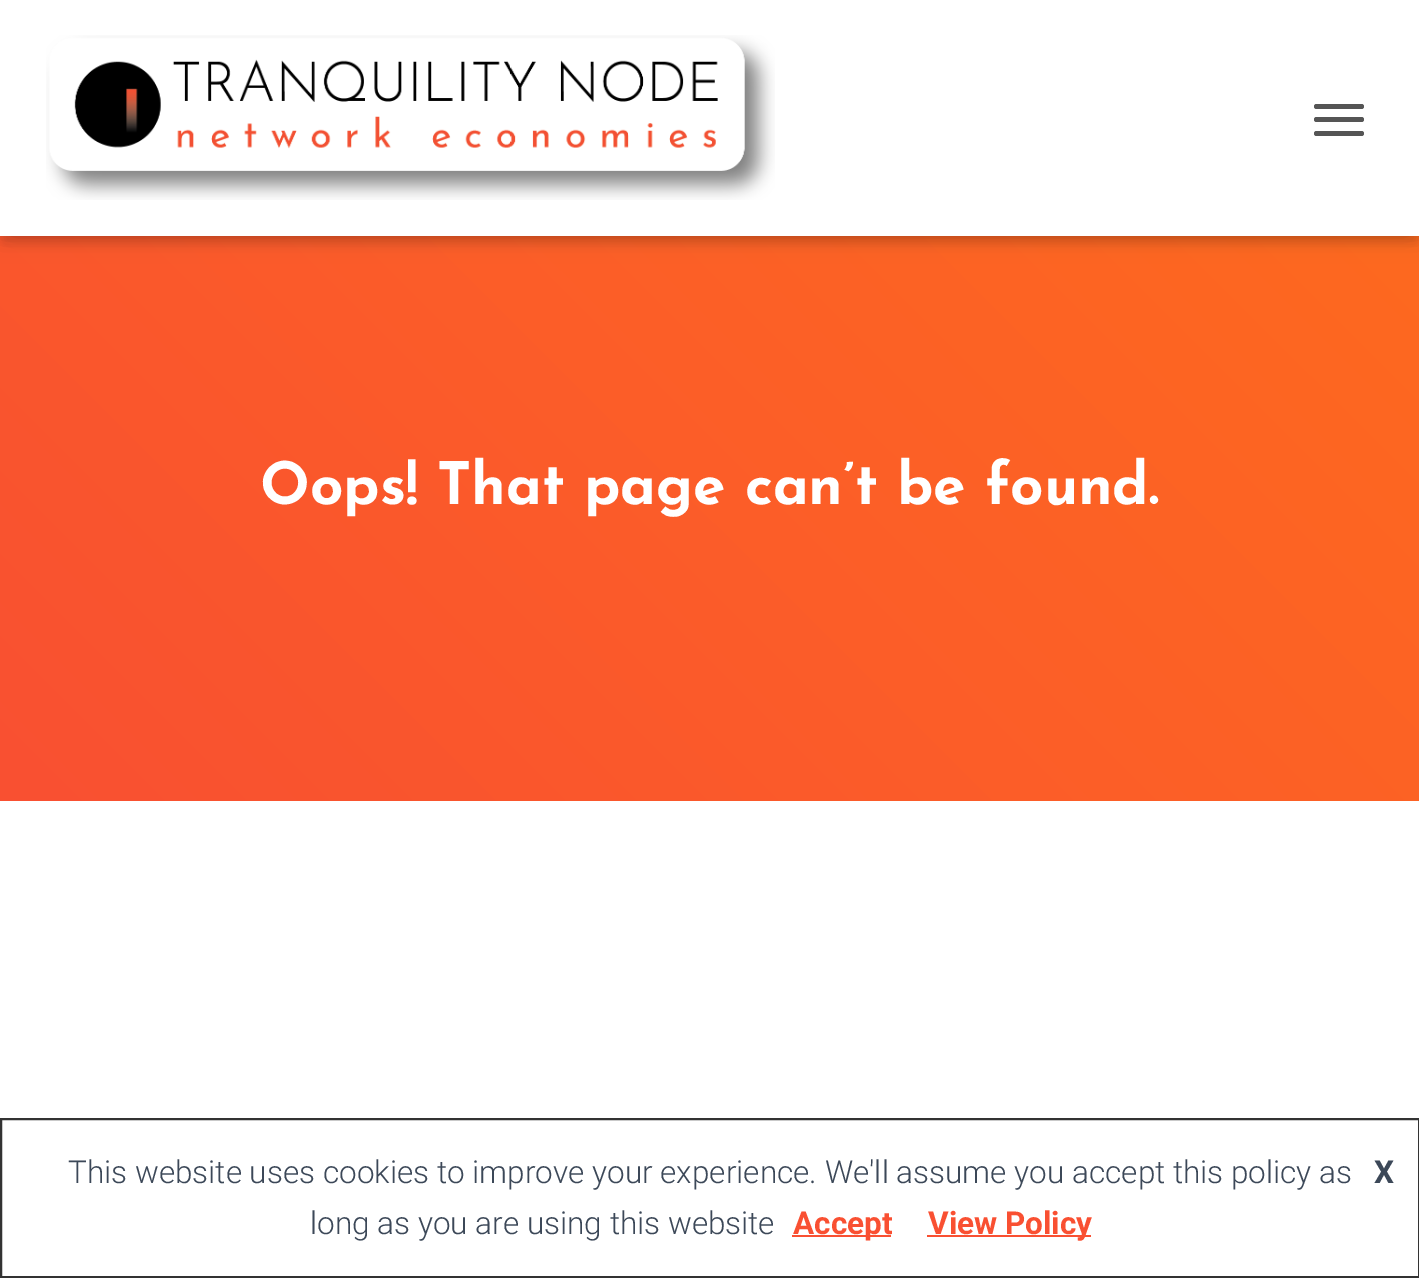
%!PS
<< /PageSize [1419 1278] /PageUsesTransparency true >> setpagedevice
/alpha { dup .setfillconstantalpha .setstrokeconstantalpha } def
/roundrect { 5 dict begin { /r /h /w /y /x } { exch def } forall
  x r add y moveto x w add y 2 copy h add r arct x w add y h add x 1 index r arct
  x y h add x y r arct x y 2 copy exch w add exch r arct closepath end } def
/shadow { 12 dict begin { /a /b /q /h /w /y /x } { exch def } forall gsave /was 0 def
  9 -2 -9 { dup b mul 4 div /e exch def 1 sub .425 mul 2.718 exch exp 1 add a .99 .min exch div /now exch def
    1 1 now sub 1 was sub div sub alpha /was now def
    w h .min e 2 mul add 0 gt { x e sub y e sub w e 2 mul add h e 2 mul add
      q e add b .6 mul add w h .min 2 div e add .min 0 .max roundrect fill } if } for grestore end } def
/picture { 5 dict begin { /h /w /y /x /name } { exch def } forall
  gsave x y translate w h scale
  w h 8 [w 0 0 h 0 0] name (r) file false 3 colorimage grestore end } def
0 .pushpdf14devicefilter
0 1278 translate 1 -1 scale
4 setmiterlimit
1 setgray
0 0 1419 1278 rectfill
gsave newpath 0 236 moveto 1419 236 lineto 1419 801 lineto 0 801 lineto closepath clip newpath
<< /ShadingType 2 /ColorSpace /DeviceRGB /Coords [155 956 1265 -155] /Extend [true true] /Function << /FunctionType 2 /Domain [0 1] /C0 [0.976 0.314 0.196] /C1 [1 0.424 0.114] /N 1 >> >> shfill grestore
0 setgray
5 14 1410 227 0 5.5 0.1 shadow
0 2 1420 237 0 11 0.12 shadow
14 16 1392 209 0 11 0.42 shadow
1 setgray
0 0 1419 236 rectfill
(img1.rgb) 46 35 729 165 picture
0.333 setgray
1314 104 50 5 2.5 roundrect fill
1314 117 50 5 2.5 roundrect fill
1314 131 50 5 2.5 roundrect fill
/JosefinSans-Bold [58.5 0 0 -58.5 0 0] selectfont
1 setgray
260 504 moveto (Oops! That page can’t be found.) show
0.2 setgray
2 setlinewidth
1 1119 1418 158 rectstroke
/Roboto-Light [31.5 0 0 -31.5 0 0] selectfont
0.235 0.282 0.345 setrgbcolor
68 1183 moveto (This website uses cookies to improve your experience. We'll assume you accept this policy as) show
/Roboto-Bold [31.5 0 0 -31.5 0 0] selectfont
1374 1183 moveto (X) show
/Roboto-Light [31.5 0 0 -31.5 0 0] selectfont
310 1234 moveto (long as you are using this website) show
0.976 0.314 0.196 setrgbcolor
792 1235 99 2 rectfill
/Roboto-Bold [31.5 0 0 -31.5 0 0] selectfont
793 1234 moveto (Accept) show
927 1235 164 2 rectfill
928 1234 moveto (View Policy) show
.poppdf14devicefilter showpage
